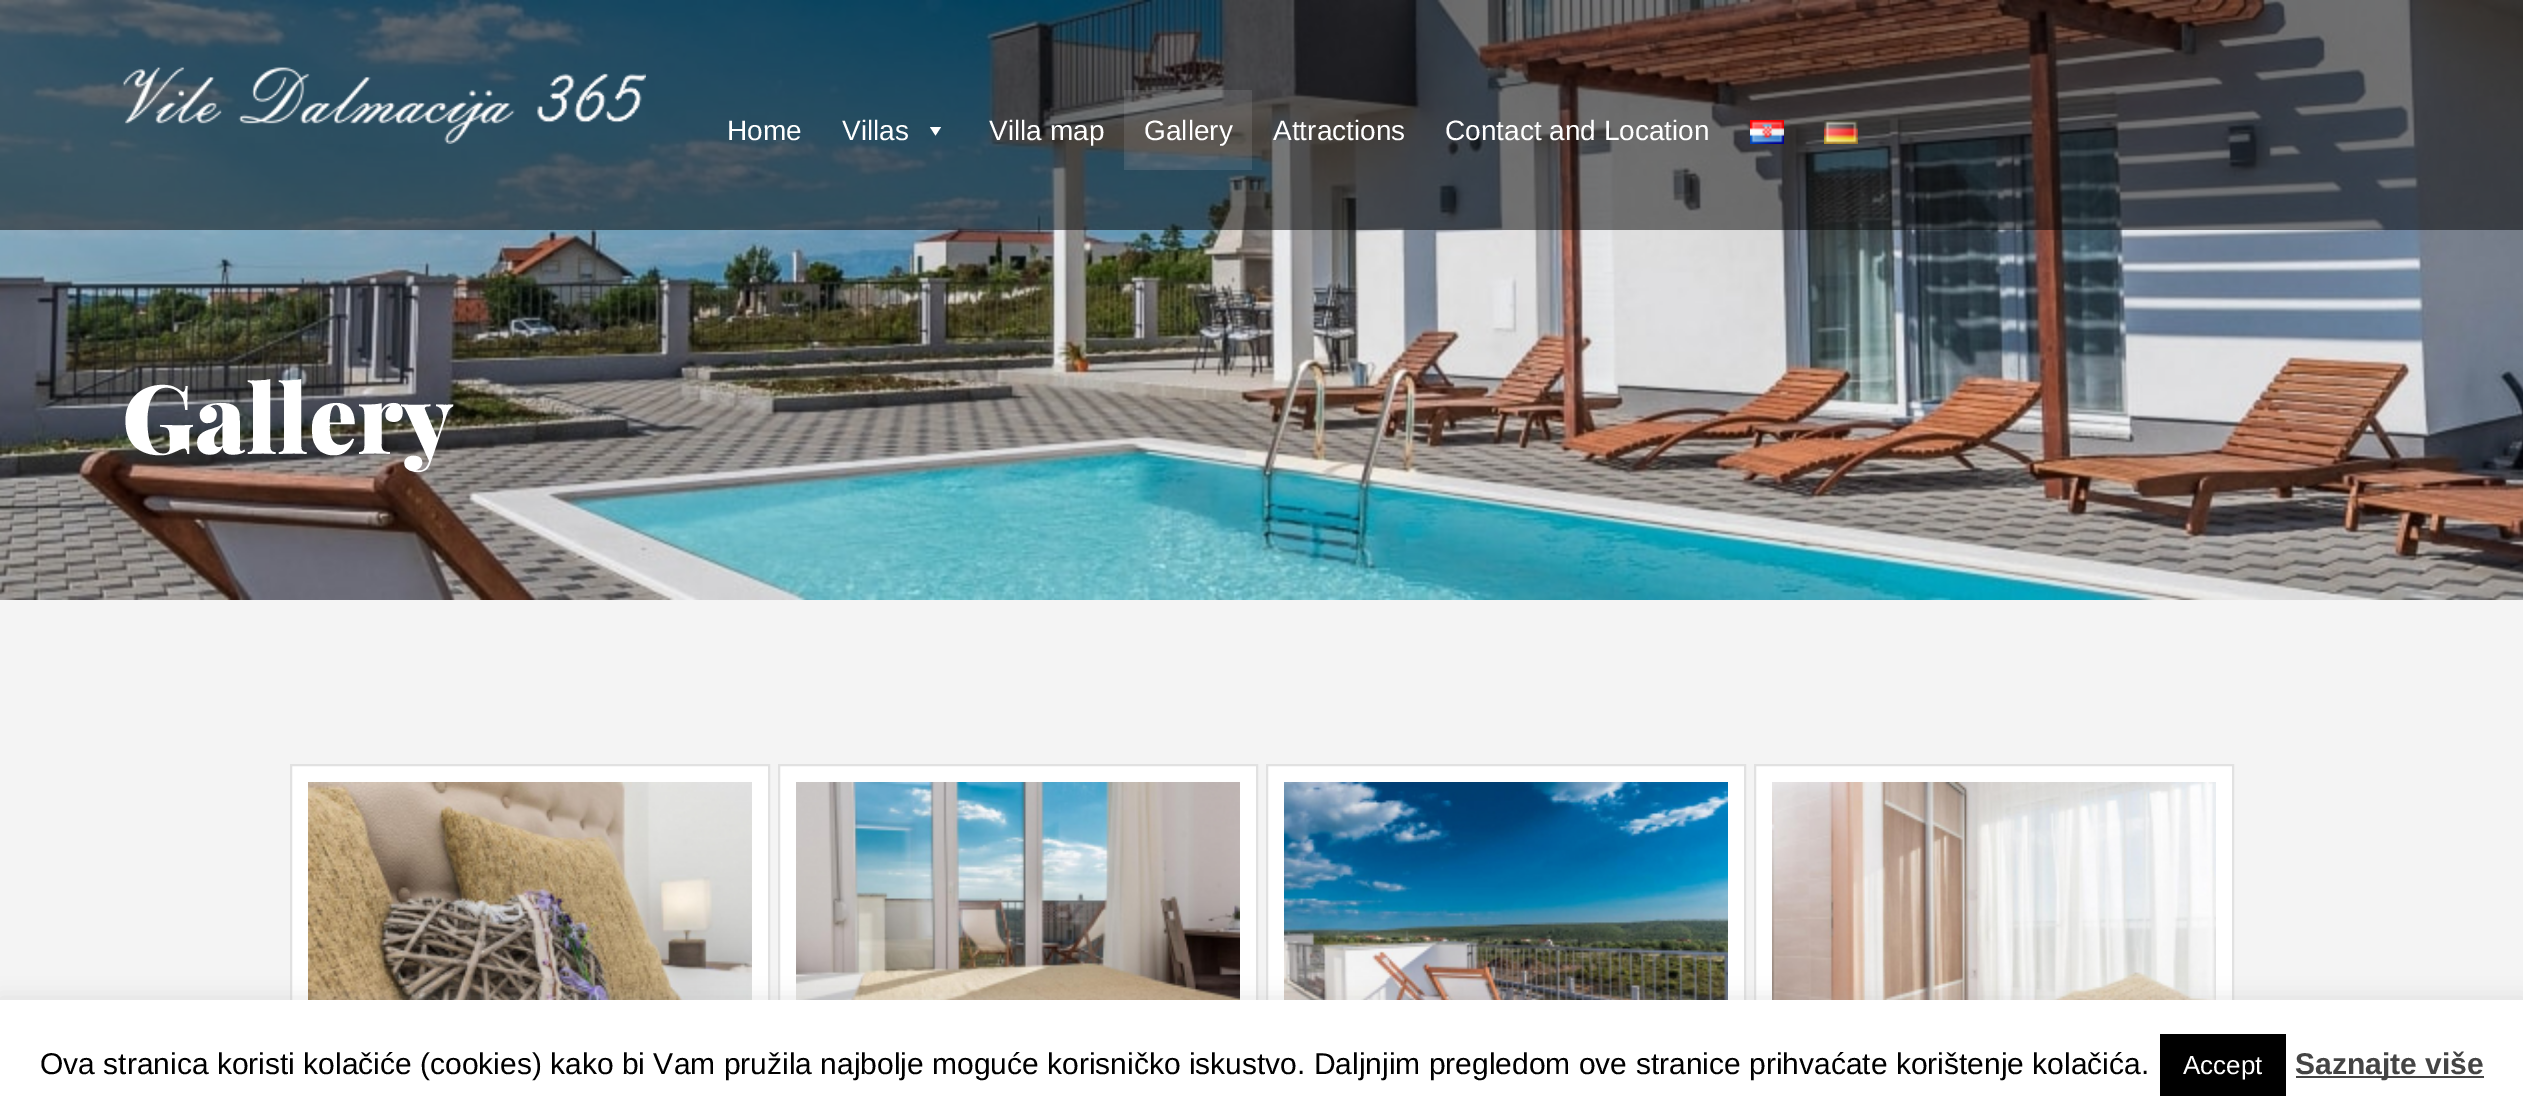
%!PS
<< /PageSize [2523 1120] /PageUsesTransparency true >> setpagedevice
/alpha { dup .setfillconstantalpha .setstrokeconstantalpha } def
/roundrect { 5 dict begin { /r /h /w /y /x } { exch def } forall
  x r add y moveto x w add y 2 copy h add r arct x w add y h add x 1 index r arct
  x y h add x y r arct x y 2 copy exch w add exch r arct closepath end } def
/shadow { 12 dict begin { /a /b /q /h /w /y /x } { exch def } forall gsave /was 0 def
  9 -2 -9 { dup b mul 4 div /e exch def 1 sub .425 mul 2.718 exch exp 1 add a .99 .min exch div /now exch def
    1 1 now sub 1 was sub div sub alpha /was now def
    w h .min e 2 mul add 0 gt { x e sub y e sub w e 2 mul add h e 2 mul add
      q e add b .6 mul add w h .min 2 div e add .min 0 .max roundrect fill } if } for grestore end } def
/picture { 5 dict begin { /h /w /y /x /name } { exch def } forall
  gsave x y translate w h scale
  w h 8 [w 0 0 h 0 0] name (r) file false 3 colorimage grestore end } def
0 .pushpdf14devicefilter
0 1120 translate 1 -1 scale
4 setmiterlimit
0.957 setgray
0 0 2523 1120 rectfill
(img4.rgb) 0 0 2523 600 picture
0.5 alpha
0 setgray
0 0 2523 230 rectfill
1 alpha
(img1.rgb) 123 67 523 77 picture
/LiberationSans-Regular [28 0 0 -28 0 0] selectfont
1 setgray
727 140 moveto (Home) show
842 140 moveto (Villas) show
newpath 941 127 moveto 935.5 135.5 lineto 930 127 lineto closepath fill
989 140 moveto (Villa map) show
0.1 alpha
1124 90 128 80 rectfill
1 alpha
1144 140 moveto (Gallery) show
1273 140 moveto (Attractions) show
1445 140 moveto (Contact and Location) show
(img2.rgb) 1750 120 34 24 picture
(img3.rgb) 1824 120 34 24 picture
/PlayfairDisplay-Black [96 0 0 -96 0 0] selectfont
122 454 moveto (Gallery) show
292 766 476 234 rectfill
0.882 setgray
2 setlinewidth
291 765 478 330 rectstroke
(img5.rgb) 308 782 444 218 picture
1 setgray
780 766 476 234 rectfill
0.882 setgray
779 765 478 330 rectstroke
(img6.rgb) 796 782 444 218 picture
1 setgray
1268 766 476 234 rectfill
0.882 setgray
1267 765 478 330 rectstroke
(img7.rgb) 1284 782 444 218 picture
1 setgray
1756 766 476 234 rectfill
0.882 setgray
1755 765 478 330 rectstroke
(img8.rgb) 1772 782 444 218 picture
0.675 0.671 0.671 setrgbcolor
0 998 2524 120 0 10 0.3 shadow
1 setgray
0 1000 2523 120 rectfill
/LiberationSans-Regular [30 0 0 -30 0 0] selectfont
0 setgray
40 1074 moveto (Ova stranica koristi kolačiće \(cookies\) kako bi Vam pružila najbolje moguće korisničko iskustvo. Daljnjim pregledom ove stranice prihvaćate korištenje kolačića.) show
2160 1034 126 62 rectfill
/LiberationSans-Regular [26 0 0 -26 0 0] selectfont
1 setgray
2183 1074 moveto (Accept) show
0.267 setgray
2296 1076 188 2 rectfill
/LiberationSans-Bold [30 0 0 -30 0 0] selectfont
2295 1074 moveto (Saznajte više) show
.poppdf14devicefilter showpage
